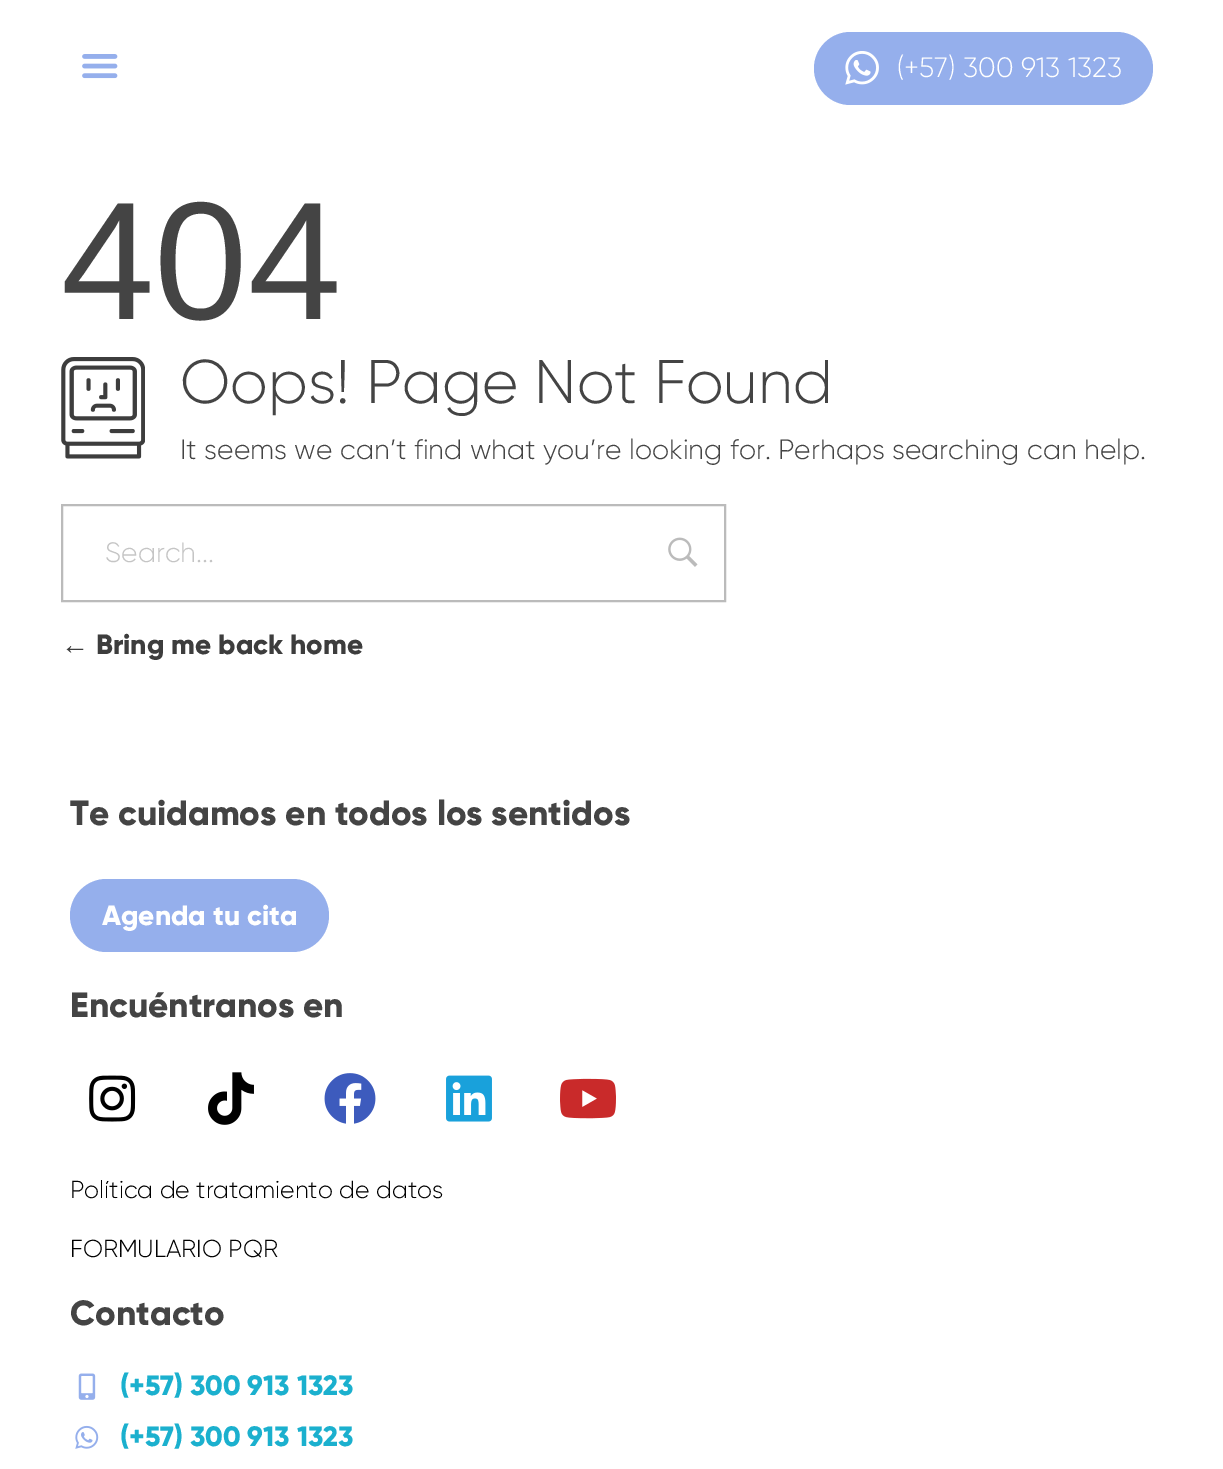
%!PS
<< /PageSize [1223 1469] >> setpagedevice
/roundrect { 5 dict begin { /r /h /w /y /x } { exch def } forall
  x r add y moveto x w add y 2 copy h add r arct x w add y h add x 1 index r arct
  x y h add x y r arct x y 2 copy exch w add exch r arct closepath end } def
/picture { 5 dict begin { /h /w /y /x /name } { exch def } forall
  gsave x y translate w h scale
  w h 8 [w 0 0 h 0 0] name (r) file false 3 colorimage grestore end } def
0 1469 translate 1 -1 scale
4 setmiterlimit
1 setgray
0 0 1223 1469 rectfill
(img1.rgb) 82 54 36 25 picture
0.584 0.686 0.925 setrgbcolor
814 32 339 73 36.5 roundrect fill
(img2.rgb) 845 51 34 34 picture
/Gilroy-Light [28 0 0 -28 0 0] selectfont
1 setgray
897 77 moveto (\(+57\) 300 913 1323) show
/LiberationSans-Regular [168 0 0 -168 0 0] selectfont
0.267 setgray
61 319 moveto (404) show
(img3.rgb) 61 357 84 102 picture
/Gilroy-Light [61.6 0 0 -61.6 0 0] selectfont
180 403 moveto (Oops! Page Not Found) show
/Gilroy-Light [28 0 0 -28 0 0] selectfont
180 459 moveto (It seems we can’t find what you’re looking for. Perhaps searching can help.) show
0.733 setgray
2 setlinewidth
62 505 663 96 rectstroke
0.773 setgray
105 562 moveto (Search...) show
(img4.rgb) 668 537 30 30 picture
/LiberationSans-Bold [28 0 0 -28 0 0] selectfont
0.239 setgray
61 654 moveto (←) show
/Gilroy-ExtraBold [28 0 0 -28 0 0] selectfont
96 654 moveto (Bring me back home) show
/Gilroy-ExtraBold [35 0 0 -35 0 0] selectfont
0.267 setgray
70 825 moveto (Te cuidamos en todos los sentidos) show
0.584 0.686 0.925 setrgbcolor
70 879 259 73 36.5 roundrect fill
/Gilroy-ExtraBold [28 0 0 -28 0 0] selectfont
1 setgray
102 925 moveto (Agenda tu cita) show
/Gilroy-ExtraBold [35 0 0 -35 0 0] selectfont
0.267 setgray
70 1017 moveto (Encuéntranos en) show
(img5.rgb) 89 1075 47 47 picture
(img6.rgb) 208 1072 46 53 picture
(img7.rgb) 324 1073 52 51 picture
(img8.rgb) 446 1075 46 47 picture
(img9.rgb) 560 1078 56 41 picture
/Gilroy-Light [24.5 0 0 -24.5 0 0] selectfont
0 setgray
70 1198 moveto (Política de tratamiento de datos) show
70 1257 moveto (FORMULARIO PQR) show
/Gilroy-ExtraBold [35 0 0 -35 0 0] selectfont
0.267 setgray
70 1325 moveto (Contacto) show
(img10.rgb) 78 1373 18 27 picture
/Gilroy-ExtraBold [28 0 0 -28 0 0] selectfont
0.106 0.69 0.808 setrgbcolor
120 1395 moveto (\(+57\) 300 913 1323) show
(img11.rgb) 75 1425 24 24 picture
120 1446 moveto (\(+57\) 300 913 1323) show
showpage
